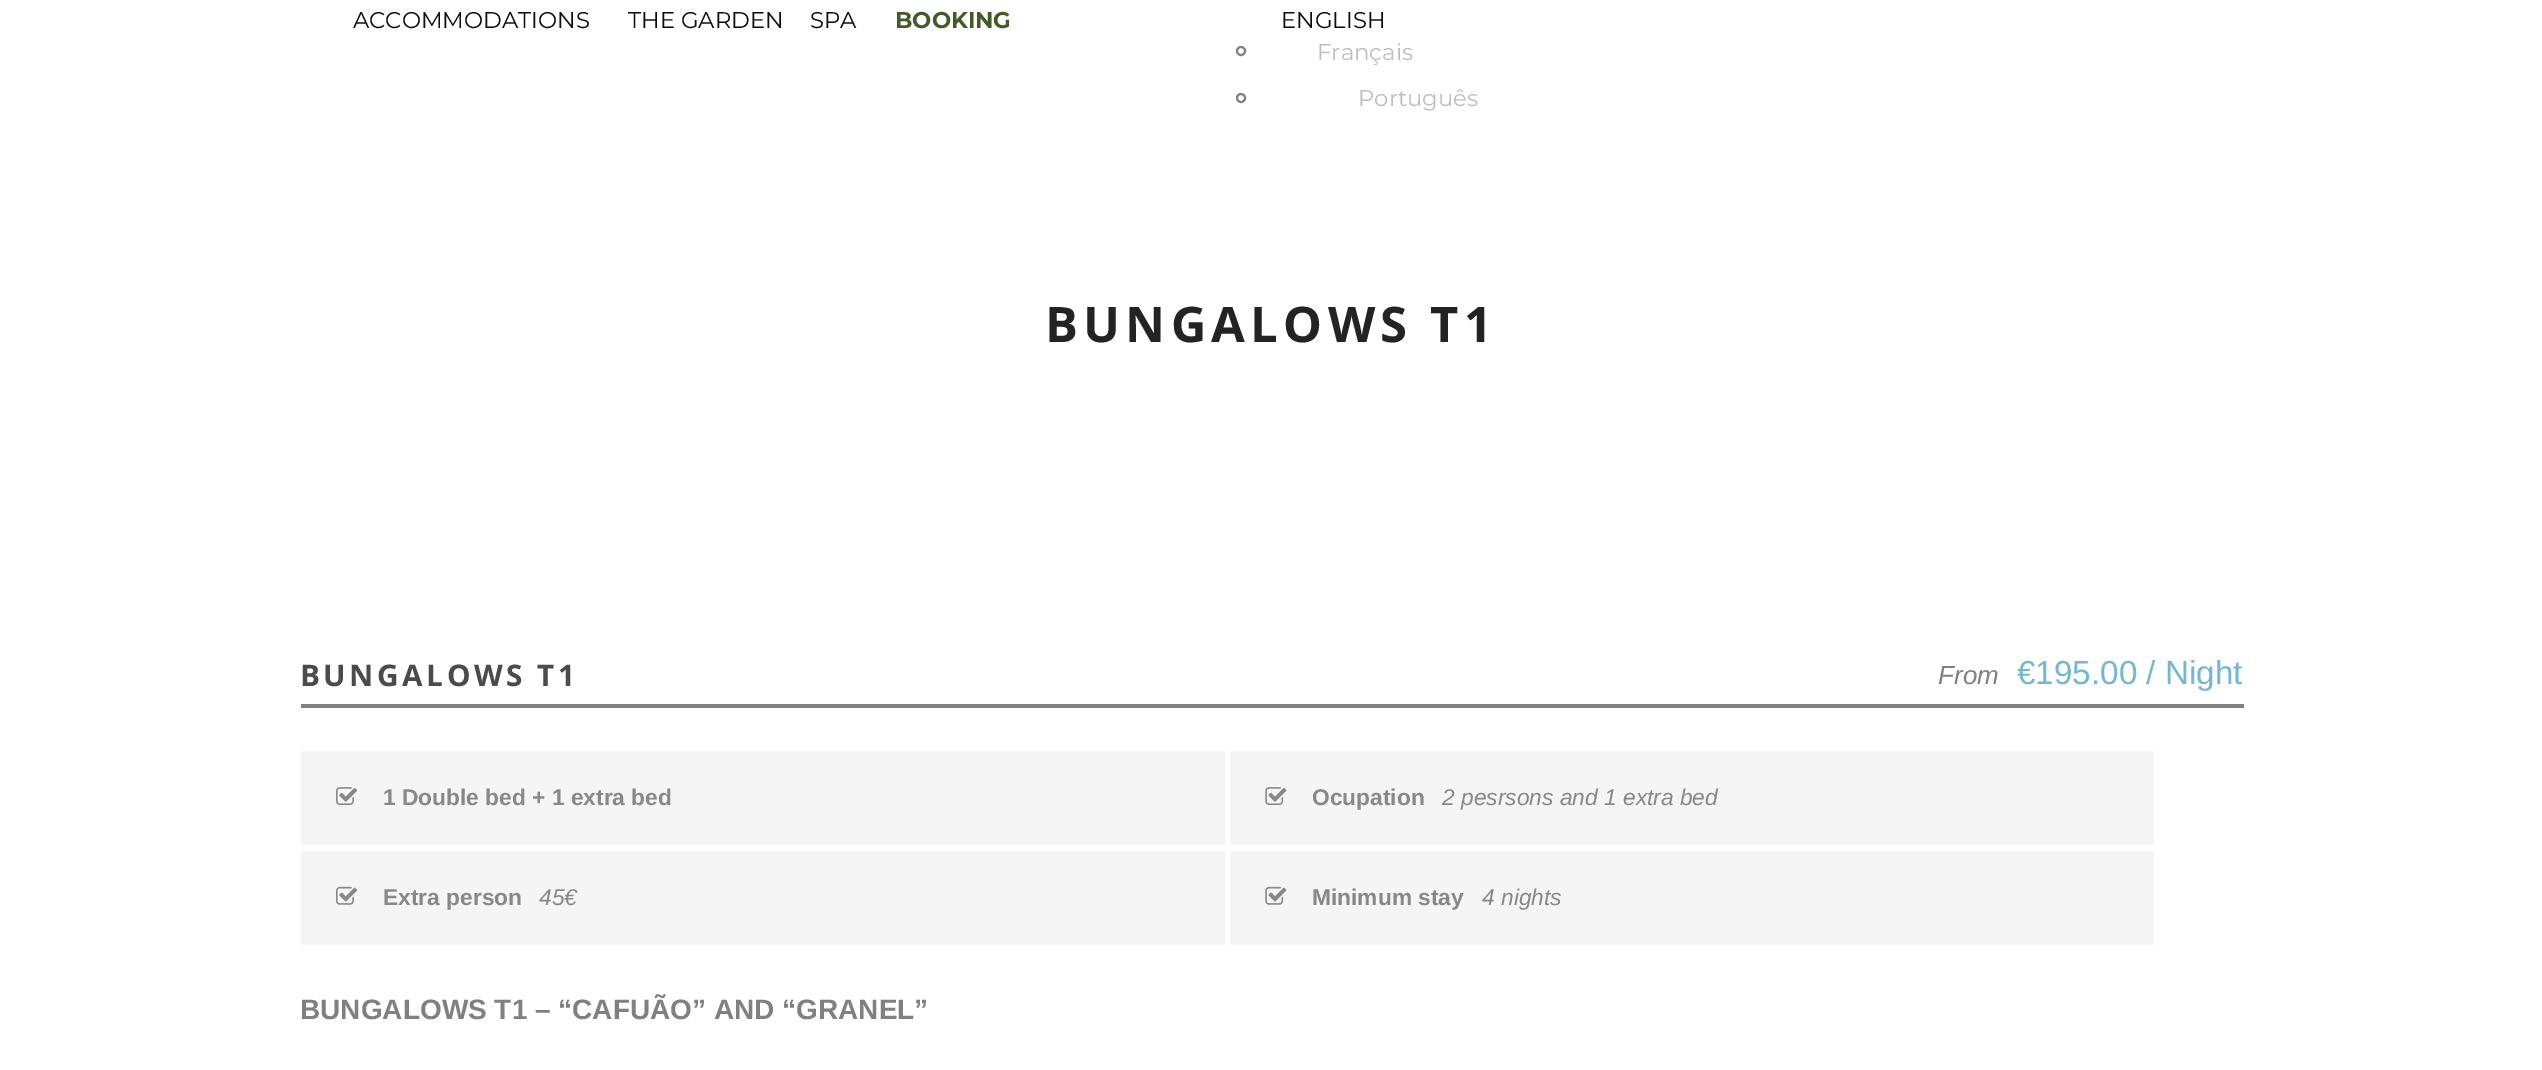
%!PS
<< /PageSize [2542 1070] >> setpagedevice
/picture { 5 dict begin { /h /w /y /x /name } { exch def } forall
  gsave x y translate w h scale
  w h 8 [w 0 0 h 0 0] name (r) file false 3 colorimage grestore end } def
0 1070 translate 1 -1 scale
4 setmiterlimit
1 setgray
0 0 2542 1070 rectfill
/Montserrat-Regular [22.75 0 0 -22.75 0 0] selectfont
0.047 setgray
353 28 moveto (ACCOMMODATIONS) show
628 28 moveto (THE GARDEN) show
810 28 moveto (SPA) show
/Montserrat-Bold [22.75 0 0 -22.75 0 0] selectfont
0.259 0.349 0.157 setrgbcolor
895 28 moveto (BOOKING) show
/Montserrat-Regular [22.75 0 0 -22.75 0 0] selectfont
0.047 setgray
1281 28 moveto (ENGLISH) show
0.502 setgray
2 setlinewidth
newpath 1241 51 4 0 360 arc closepath stroke
0.745 setgray
1317 60 moveto (Français) show
0.502 setgray
newpath 1241 98 4 0 360 arc closepath stroke
0.745 setgray
1358 106 moveto (Português) show
/OpenSans-Bold [49 0 0 -49 0 0] selectfont
0.137 setgray
1045 342 moveto 5.25 0 (BUNGALOWS T1) ashow
0.502 setgray
301 704 1943 4 rectfill
/OpenSans-Bold [29.75 0 0 -29.75 0 0] selectfont
0.294 setgray
300 686 moveto 3.5 0 (BUNGALOWS T1) ashow
/LiberationSans-Italic [26 0 0 -26 0 0] selectfont
0.502 setgray
1938 684 moveto (From) show
/LiberationSans-Regular [33.25 0 0 -33.25 0 0] selectfont
0.455 0.718 0.827 setrgbcolor
2017 684 moveto (€195.00 / Night) show
0.961 setgray
301 751 924 94 rectfill
(img1.rgb) 336 787 22 18 picture
/LiberationSans-Bold [22.75 0 0 -22.75 0 0] selectfont
0.533 setgray
383 805 moveto (1 Double bed + 1 extra bed) show
0.961 setgray
1230 751 924 94 rectfill
(img2.rgb) 1265 787 22 18 picture
0.533 setgray
1312 805 moveto (Ocupation) show
/LiberationSans-Italic [22.75 0 0 -22.75 0 0] selectfont
1442 805 moveto (2 pesrsons and 1 extra bed) show
0.961 setgray
301 851 924 94 rectfill
(img3.rgb) 336 886 22 19 picture
/LiberationSans-Bold [22.75 0 0 -22.75 0 0] selectfont
0.533 setgray
383 905 moveto (Extra person) show
/LiberationSans-Italic [22.75 0 0 -22.75 0 0] selectfont
539 905 moveto (45€) show
0.961 setgray
1230 851 924 94 rectfill
(img4.rgb) 1265 886 22 19 picture
/LiberationSans-Bold [22.75 0 0 -22.75 0 0] selectfont
0.533 setgray
1312 905 moveto (Minimum stay) show
/LiberationSans-Italic [22.75 0 0 -22.75 0 0] selectfont
1482 905 moveto (4 nights) show
/LiberationSans-Bold [28 0 0 -28 0 0] selectfont
0.502 setgray
300 1019 moveto (BUNGALOWS T1 – “CAFUÃO” AND “GRANEL”) show
showpage
